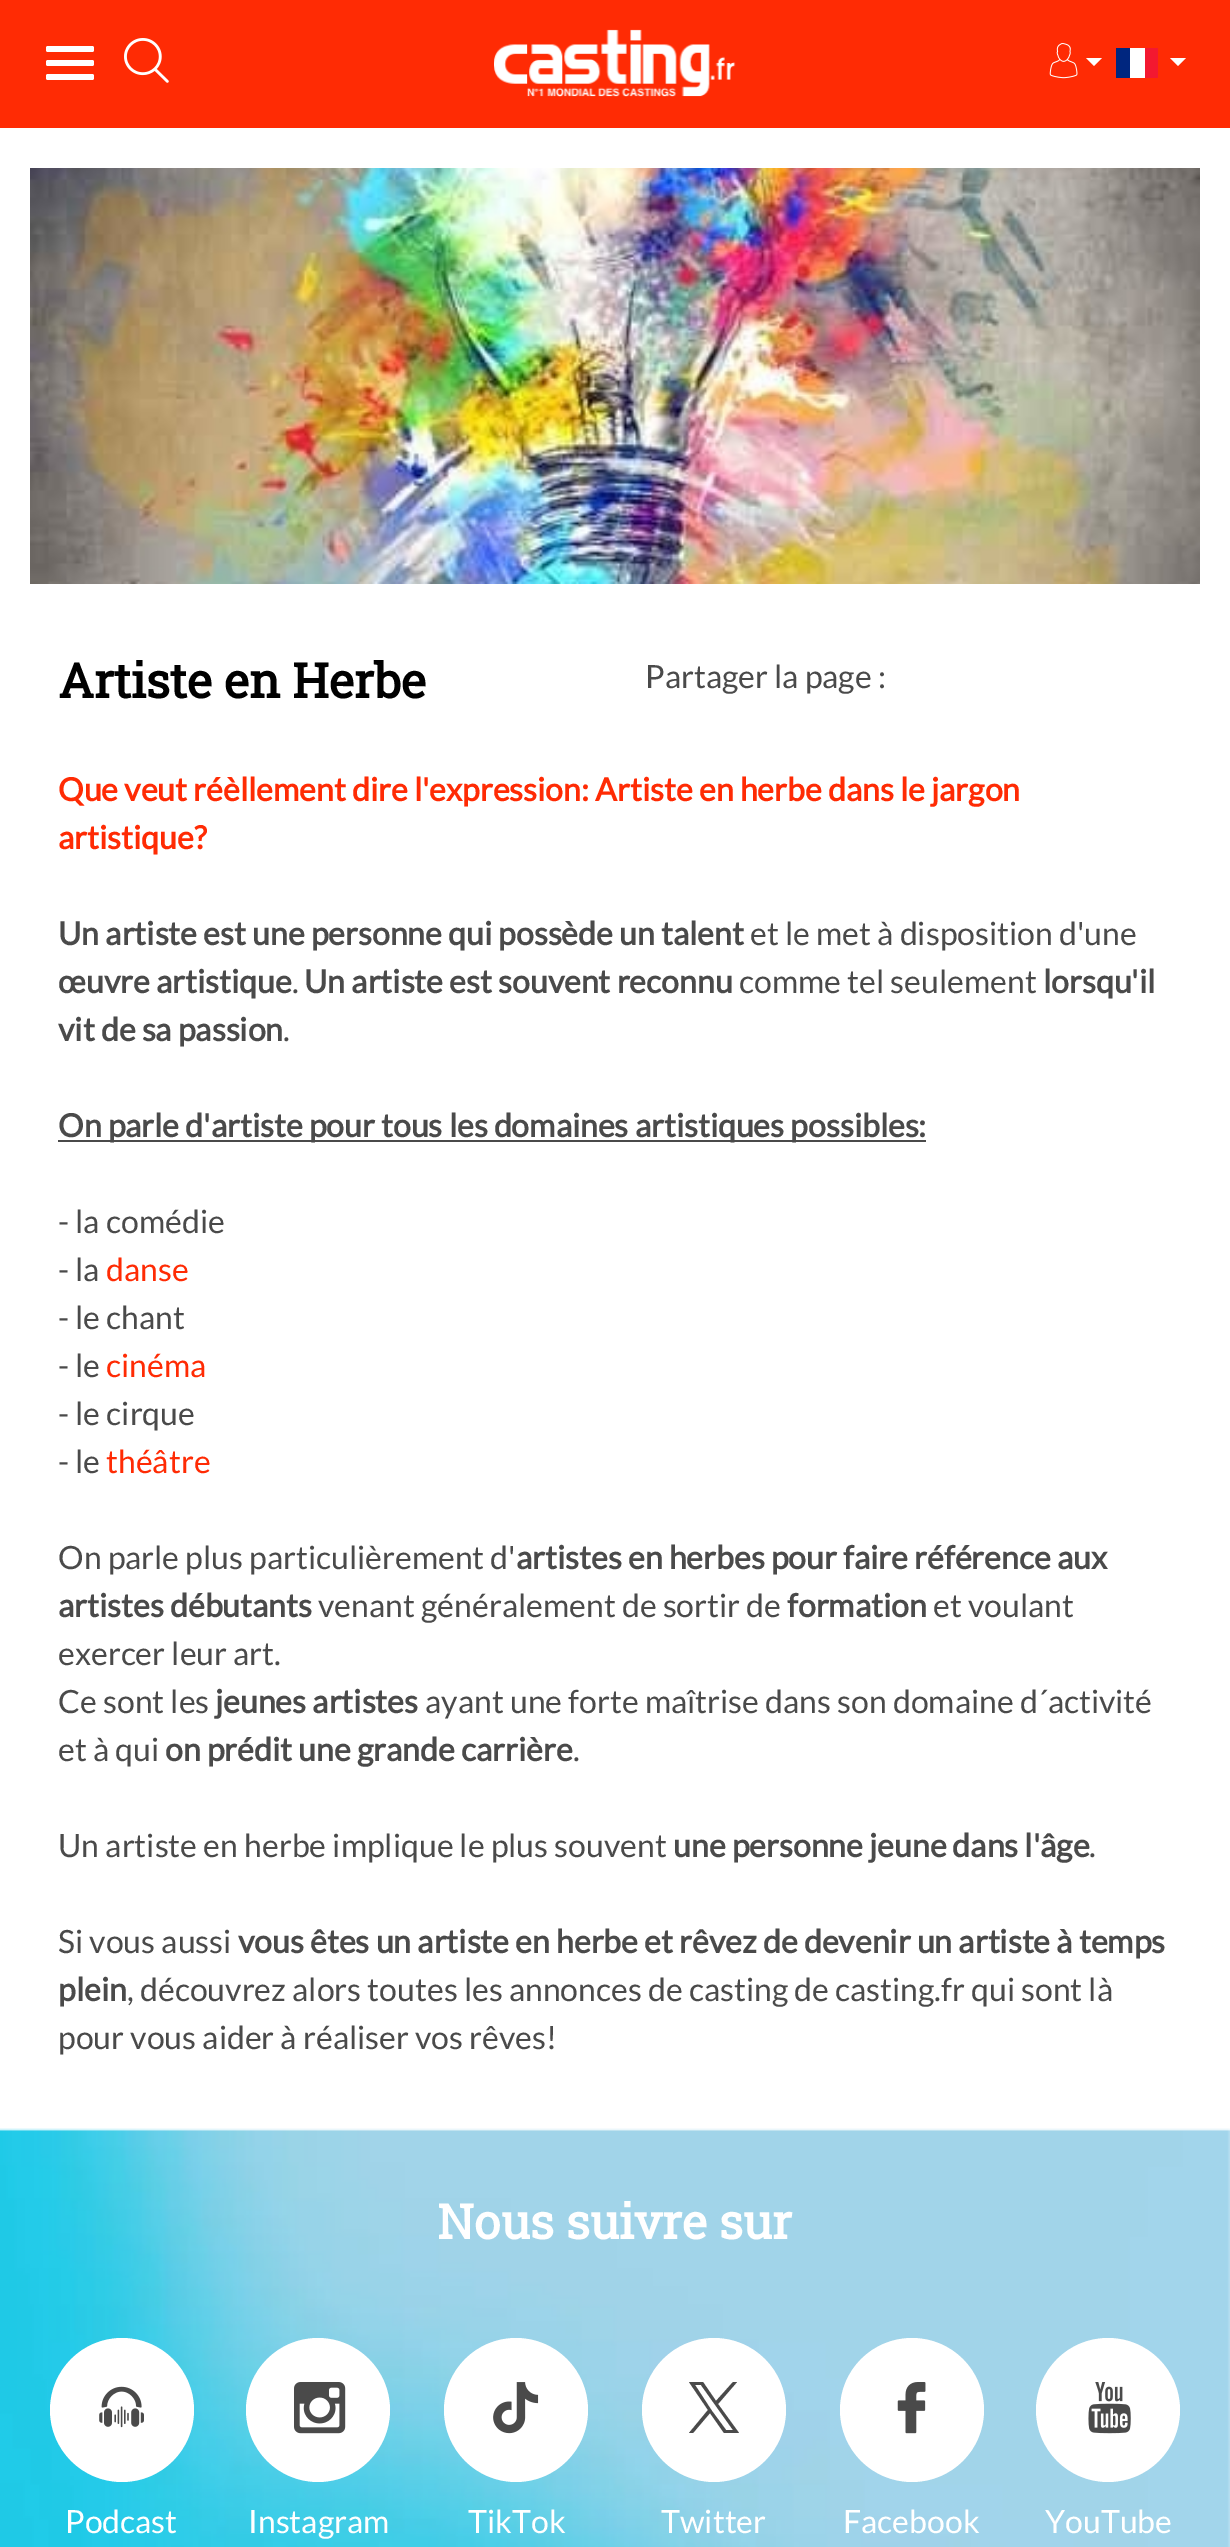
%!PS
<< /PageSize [1230 2547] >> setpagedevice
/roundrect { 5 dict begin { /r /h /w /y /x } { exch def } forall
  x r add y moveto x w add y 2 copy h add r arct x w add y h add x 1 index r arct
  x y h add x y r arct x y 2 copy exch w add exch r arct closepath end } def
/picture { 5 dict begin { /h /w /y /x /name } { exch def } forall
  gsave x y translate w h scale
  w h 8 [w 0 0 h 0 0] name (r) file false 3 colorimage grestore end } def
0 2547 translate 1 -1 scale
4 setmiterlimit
1 setgray
0 0 1230 2547 rectfill
1 0.169 0.016 setrgbcolor
0 0 1230 128 rectfill
1 setgray
46 46 48 6 2 roundrect fill
46 60 48 6 2 roundrect fill
46 74 48 6 2 roundrect fill
(img1.rgb) 124 38 45 45 picture
(img2.rgb) 494 29 242 68 picture
(img3.rgb) 1049 43 29 36 picture
newpath 1086 58 moveto 1102 58 lineto 1094 66 lineto closepath fill
1130 48 15 30 rectfill
0 0.149 0.498 setrgbcolor
1116 48 14 30 rectfill
0.953 0.094 0.188 setrgbcolor
1145 48 13 30 rectfill
1 setgray
newpath 1170 58 moveto 1186 58 lineto 1178 66 lineto closepath fill
(img4.rgb) 30 168 1170 416 picture
/RobotoSlab-Bold [48 0 0 -48 0 0] selectfont
0 setgray
58 698 moveto (Artiste en Herbe) show
/Lato-Regular [32 0 0 -32 0 0] selectfont
0.29 setgray
645 688 moveto (Partager la page :) show
/Lato-Bold [32 0 0 -32 0 0] selectfont
1 0.169 0.016 setrgbcolor
58 801 moveto (Que veut réèllement dire l'expression: Artiste en herbe dans le jargon) show
58 849 moveto (artistique?) show
0.29 setgray
58 945 moveto (Un artiste est une personne qui possède un talent) show
/Lato-Regular [32 0 0 -32 0 0] selectfont
750 945 moveto (et le met à disposition d'une) show
/Lato-Bold [32 0 0 -32 0 0] selectfont
58 993 moveto (œuvre artistique) show
/Lato-Regular [32 0 0 -32 0 0] selectfont
292 993 moveto (.) show
/Lato-Bold [32 0 0 -32 0 0] selectfont
304 993 moveto (Un artiste est souvent reconnu) show
/Lato-Regular [32 0 0 -32 0 0] selectfont
739 993 moveto (comme tel seulement) show
/Lato-Bold [32 0 0 -32 0 0] selectfont
1043 993 moveto (lorsqu'il) show
58 1041 moveto (vit de sa passion) show
/Lato-Regular [32 0 0 -32 0 0] selectfont
283 1041 moveto (.) show
58 1140 868 2 rectfill
/Lato-Bold [32 0 0 -32 0 0] selectfont
58 1137 moveto (On parle d'artiste pour tous les domaines artistiques possibles:) show
/Lato-Regular [32 0 0 -32 0 0] selectfont
58 1233 moveto (- la comédie) show
58 1281 moveto (- la) show
1 0.169 0.016 setrgbcolor
106 1281 moveto (danse) show
0.29 setgray
58 1329 moveto (- le chant) show
58 1377 moveto (- le) show
1 0.169 0.016 setrgbcolor
106 1377 moveto (cinéma) show
0.29 setgray
58 1425 moveto (- le cirque) show
58 1473 moveto (- le) show
1 0.169 0.016 setrgbcolor
106 1473 moveto (théâtre) show
0.29 setgray
58 1569 moveto (On parle plus particulièrement d') show
/Lato-Bold [32 0 0 -32 0 0] selectfont
516 1569 moveto (artistes en herbes pour faire référence aux) show
58 1617 moveto (artistes débutants) show
/Lato-Regular [32 0 0 -32 0 0] selectfont
318 1617 moveto (venant généralement de sortir de) show
/Lato-Bold [32 0 0 -32 0 0] selectfont
787 1617 moveto (formation) show
/Lato-Regular [32 0 0 -32 0 0] selectfont
933 1617 moveto (et voulant) show
58 1665 moveto (exercer leur art.) show
58 1713 moveto (Ce sont les) show
/Lato-Bold [32 0 0 -32 0 0] selectfont
215 1713 moveto (jeunes artistes) show
/Lato-Regular [32 0 0 -32 0 0] selectfont
425 1713 moveto (ayant une forte maîtrise dans son domaine d´activité) show
58 1761 moveto (et à qui) show
/Lato-Bold [32 0 0 -32 0 0] selectfont
165 1761 moveto (on prédit une grande carrière) show
/Lato-Regular [32 0 0 -32 0 0] selectfont
573 1761 moveto (.) show
58 1857 moveto (Un artiste en herbe implique le plus souvent) show
/Lato-Bold [32 0 0 -32 0 0] selectfont
673 1857 moveto (une personne jeune dans l'âge) show
/Lato-Regular [32 0 0 -32 0 0] selectfont
1089 1857 moveto (.) show
58 1953 moveto (Si vous aussi) show
/Lato-Bold [32 0 0 -32 0 0] selectfont
238 1953 moveto (vous êtes un artiste en herbe et rêvez de devenir un artiste à temps) show
58 2001 moveto (plein) show
/Lato-Regular [32 0 0 -32 0 0] selectfont
127 2001 moveto (, découvrez alors toutes les annonces de casting de casting.fr qui sont là) show
58 2049 moveto (pour vous aider à réaliser vos rêves!) show
(img5.rgb) 0 2128 1230 419 picture
/RobotoSlab-Bold [48 0 0 -48 0 0] selectfont
1 setgray
437 2239 moveto (Nous suivre sur) show
newpath 122 2410 72 0 360 arc closepath fill
(img6.rgb) 99 2386 45 42 picture
/Lato-Regular [32 0 0 -32 0 0] selectfont
65 2533 moveto (Podcast) show
newpath 318 2410 72 0 360 arc closepath fill
(img7.rgb) 294 2382 52 52 picture
248 2533 moveto (Instagram) show
newpath 516 2410 72 0 360 arc closepath fill
(img8.rgb) 493 2382 46 52 picture
468 2533 moveto (TikTok) show
newpath 714 2410 72 0 360 arc closepath fill
0.29 setgray
newpath 718 2404 moveto 737 2382 lineto 733 2382 lineto 716 2401 lineto 703 2382 lineto 689 2382 lineto 708 2410 lineto 689 2433 lineto 693 2433 lineto 710 2413 lineto 724 2433 lineto 739 2433 lineto closepath 712 2411 moveto 695 2385 lineto 701 2385 lineto 733 2430 lineto 726 2430 lineto closepath fill
1 setgray
661 2533 moveto (Twitter) show
newpath 912 2410 72 0 360 arc closepath fill
(img9.rgb) 897 2382 29 52 picture
843 2533 moveto (Facebook) show
newpath 1108 2410 72 0 360 arc closepath fill
(img10.rgb) 1088 2382 43 52 picture
1045 2533 moveto (YouTube) show
showpage
